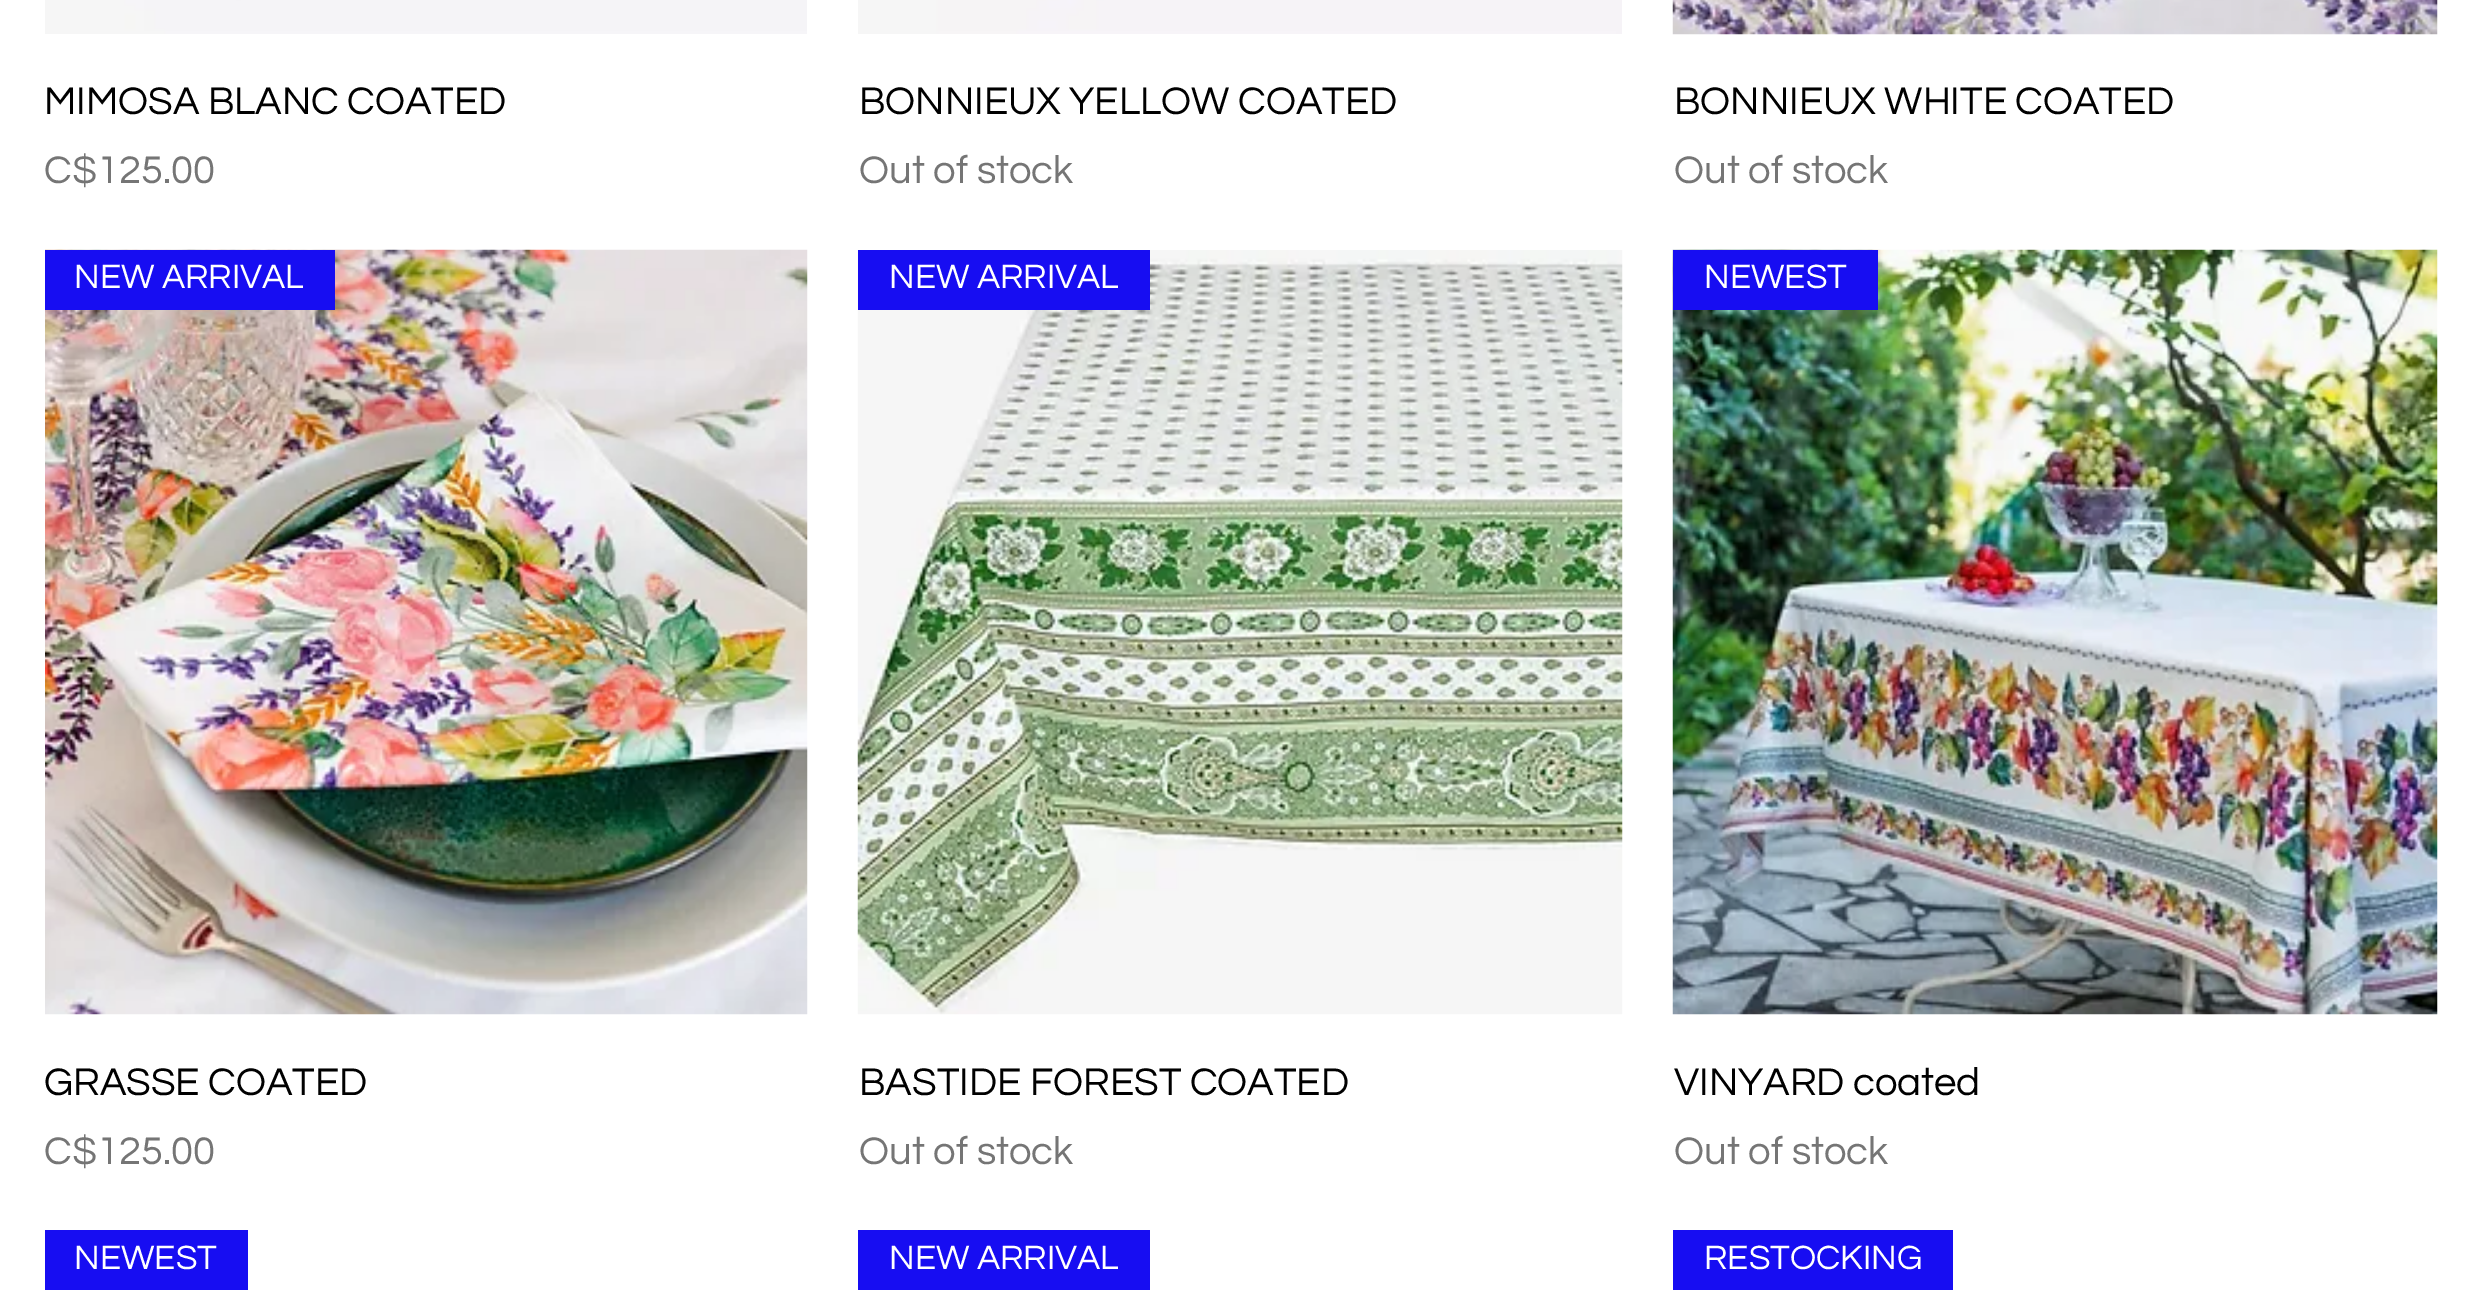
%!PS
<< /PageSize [2481 1300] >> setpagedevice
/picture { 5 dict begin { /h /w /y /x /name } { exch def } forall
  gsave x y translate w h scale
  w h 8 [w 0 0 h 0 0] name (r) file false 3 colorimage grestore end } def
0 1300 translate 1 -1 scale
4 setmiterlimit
1 setgray
0 0 2481 1300 rectfill
(img1.rgb) 45 0 762 34 picture
/Questrial-Regular [40 0 0 -40 0 0] selectfont
0 setgray
44 114 moveto (MIMOSA BLANC COATED) show
0.459 setgray
44 183 moveto (C$125.00) show
(img2.rgb) 858 0 764 34 picture
0 setgray
859 114 moveto (BONNIEUX YELLOW COATED) show
0.459 setgray
859 183 moveto (Out of stock) show
(img3.rgb) 1672 0 766 35 picture
0 setgray
1674 114 moveto (BONNIEUX WHITE COATED) show
0.459 setgray
1674 183 moveto (Out of stock) show
(img4.rgb) 45 249 763 766 picture
0.09 0.051 0.949 setrgbcolor
45 250 290 60 rectfill
/Questrial-Regular [35 0 0 -35 0 0] selectfont
1 setgray
74 288 moveto (NEW ARRIVAL) show
/Questrial-Regular [40 0 0 -40 0 0] selectfont
0 setgray
44 1095 moveto (GRASSE COATED) show
0.459 setgray
44 1164 moveto (C$125.00) show
(img5.rgb) 857 250 766 765 picture
0.09 0.051 0.949 setrgbcolor
858 250 292 60 rectfill
/Questrial-Regular [35 0 0 -35 0 0] selectfont
1 setgray
889 288 moveto (NEW ARRIVAL) show
/Questrial-Regular [40 0 0 -40 0 0] selectfont
0 setgray
859 1095 moveto (BASTIDE FOREST COATED) show
0.459 setgray
859 1164 moveto (Out of stock) show
(img6.rgb) 1672 249 766 766 picture
0.09 0.051 0.949 setrgbcolor
1673 250 205 60 rectfill
/Questrial-Regular [35 0 0 -35 0 0] selectfont
1 setgray
1704 288 moveto (NEWEST) show
/Questrial-Regular [40 0 0 -40 0 0] selectfont
0 setgray
1674 1095 moveto (VINYARD coated) show
0.459 setgray
1674 1164 moveto (Out of stock) show
0.09 0.051 0.949 setrgbcolor
45 1230 203 60 rectfill
/Questrial-Regular [35 0 0 -35 0 0] selectfont
1 setgray
74 1269 moveto (NEWEST) show
0.09 0.051 0.949 setrgbcolor
858 1230 292 60 rectfill
1 setgray
889 1269 moveto (NEW ARRIVAL) show
0.09 0.051 0.949 setrgbcolor
1673 1230 280 60 rectfill
1 setgray
1704 1269 moveto (RESTOCKING) show
showpage
